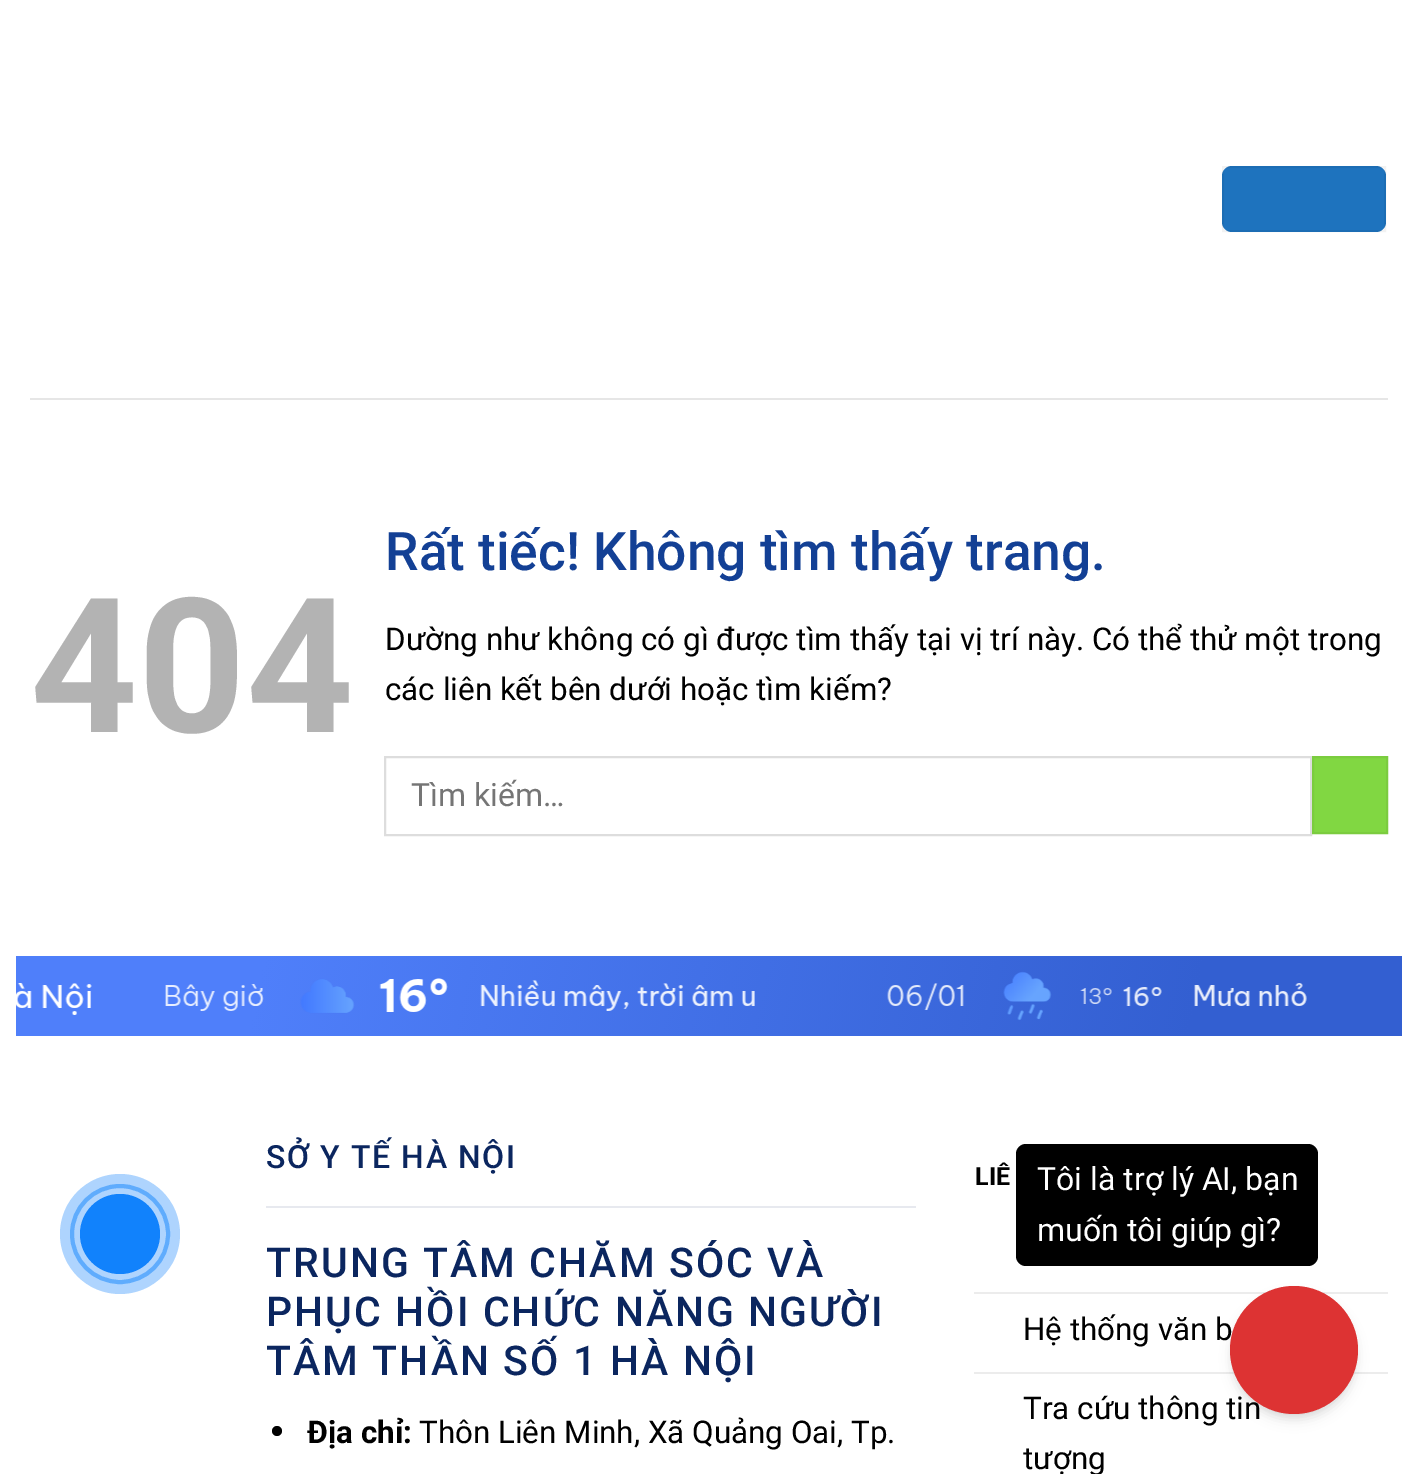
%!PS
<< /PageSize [1417 1474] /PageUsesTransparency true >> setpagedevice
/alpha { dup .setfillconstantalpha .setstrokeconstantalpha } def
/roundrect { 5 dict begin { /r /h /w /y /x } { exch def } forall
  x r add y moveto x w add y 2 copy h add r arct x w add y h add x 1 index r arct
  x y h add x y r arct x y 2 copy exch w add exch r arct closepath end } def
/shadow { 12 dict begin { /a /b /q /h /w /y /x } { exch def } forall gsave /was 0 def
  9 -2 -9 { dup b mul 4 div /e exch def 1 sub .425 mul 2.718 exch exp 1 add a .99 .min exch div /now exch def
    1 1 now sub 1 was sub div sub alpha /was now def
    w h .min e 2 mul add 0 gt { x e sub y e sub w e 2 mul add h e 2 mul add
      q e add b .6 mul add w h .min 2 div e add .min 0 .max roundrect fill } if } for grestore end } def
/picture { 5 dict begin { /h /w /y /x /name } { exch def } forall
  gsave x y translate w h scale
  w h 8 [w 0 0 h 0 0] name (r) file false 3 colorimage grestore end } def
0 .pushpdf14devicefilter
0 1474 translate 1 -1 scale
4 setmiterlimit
1 setgray
0 0 1417 1474 rectfill
0.118 0.451 0.745 setrgbcolor
1222 166 164 66 10 roundrect fill
0.05 alpha
0 setgray
2 setlinewidth
1223 167 162 64 rectstroke
1 alpha
0.902 setgray
30 398 1358 2 rectfill
/Roboto-Bold [188 0 0 -188 0 0] selectfont
0.702 setgray
30 732 moveto (404) show
/Roboto-Medium [53.25 0 0 -53.25 0 0] selectfont
0.075 0.251 0.584 setrgbcolor
385 570 moveto (Rất tiếc! Không tìm thấy trang.) show
/Roboto-Regular [31.35 0 0 -31.35 0 0] selectfont
0 setgray
385 650 moveto (Dường như không có gì được tìm thấy tại vị trí này. Có thể thử một trong) show
385 700 moveto (các liên kết bên dưới hoặc tìm kiếm?) show
0.867 setgray
385 757 926 78 rectstroke
/Roboto-Regular [32 0 0 -32 0 0] selectfont
0.459 setgray
411 806 moveto (Tìm kiếm…) show
0.506 0.843 0.259 setrgbcolor
newpath 1313 757 moveto 1387 757 lineto 1387 833 lineto 1313 833 lineto closepath gsave fill grestore
0.482 0.8 0.247 setrgbcolor
stroke
(img1.rgb) 16 956 1386 80 picture
/Roboto-Medium [32 0 0 -32 0 0] selectfont
0.043 0.149 0.373 setrgbcolor
266 1168 moveto 1.6 0 (SỞ Y TẾ HÀ NỘI) ashow
0.906 0.914 0.937 setrgbcolor
266 1206 650 2 rectfill
/Roboto-Medium [41 0 0 -41 0 0] selectfont
0.043 0.149 0.373 setrgbcolor
266 1277 moveto 2.05 0 (TRUNG TÂM CHĂM SÓC VÀ) ashow
266 1326 moveto 2.05 0 (PHỤC HỒI CHỨC NĂNG NGƯỜI) ashow
266 1375 moveto 2.05 0 (TÂM THẦN SỐ 1 HÀ NỘI) ashow
0 setgray
newpath 277 1431 5 0 360 arc closepath fill
/Roboto-Bold [31.35 0 0 -31.35 0 0] selectfont
307 1443 moveto (Địa chỉ:) show
/Roboto-Regular [31.35 0 0 -31.35 0 0] selectfont
419 1443 moveto (Thôn Liên Minh, Xã Quảng Oai, Tp.) show
/Roboto-Bold [25 0 0 -25 0 0] selectfont
975 1185 moveto (LIÊ) show
0.925 setgray
974 1292 414 2 rectfill
974 1372 414 2 rectfill
/Roboto-Regular [31.35 0 0 -31.35 0 0] selectfont
0 setgray
1023 1340 moveto (Hệ thống văn b) show
1023 1419 moveto (Tra cứu thông tin) show
1023 1469 moveto (tượng) show
0.533 0.757 0.996 setrgbcolor
4 setlinewidth
newpath 120 1234 48 0 360 arc closepath stroke
0.34 alpha
0.067 0.51 0.988 setrgbcolor
newpath 120 1234 60 0 360 arc closepath fill
1 alpha
newpath 120 1234 40 0 360 arc closepath fill
0 setgray
1016 1144 302 122 10 roundrect fill
/Roboto-Regular [32 0 0 -32 0 0] selectfont
1 setgray
1037 1190 moveto (Tôi là trợ lý AI, bạn) show
1037 1241 moveto (muốn tôi giúp gì?) show
0 setgray
1234 1294 120 120 60 4 0.1 shadow
1232 1296 124 124 62 6 0.1 shadow
0.867 0.2 0.2 setrgbcolor
newpath 1294 1350 64 0 360 arc closepath fill
.poppdf14devicefilter showpage
